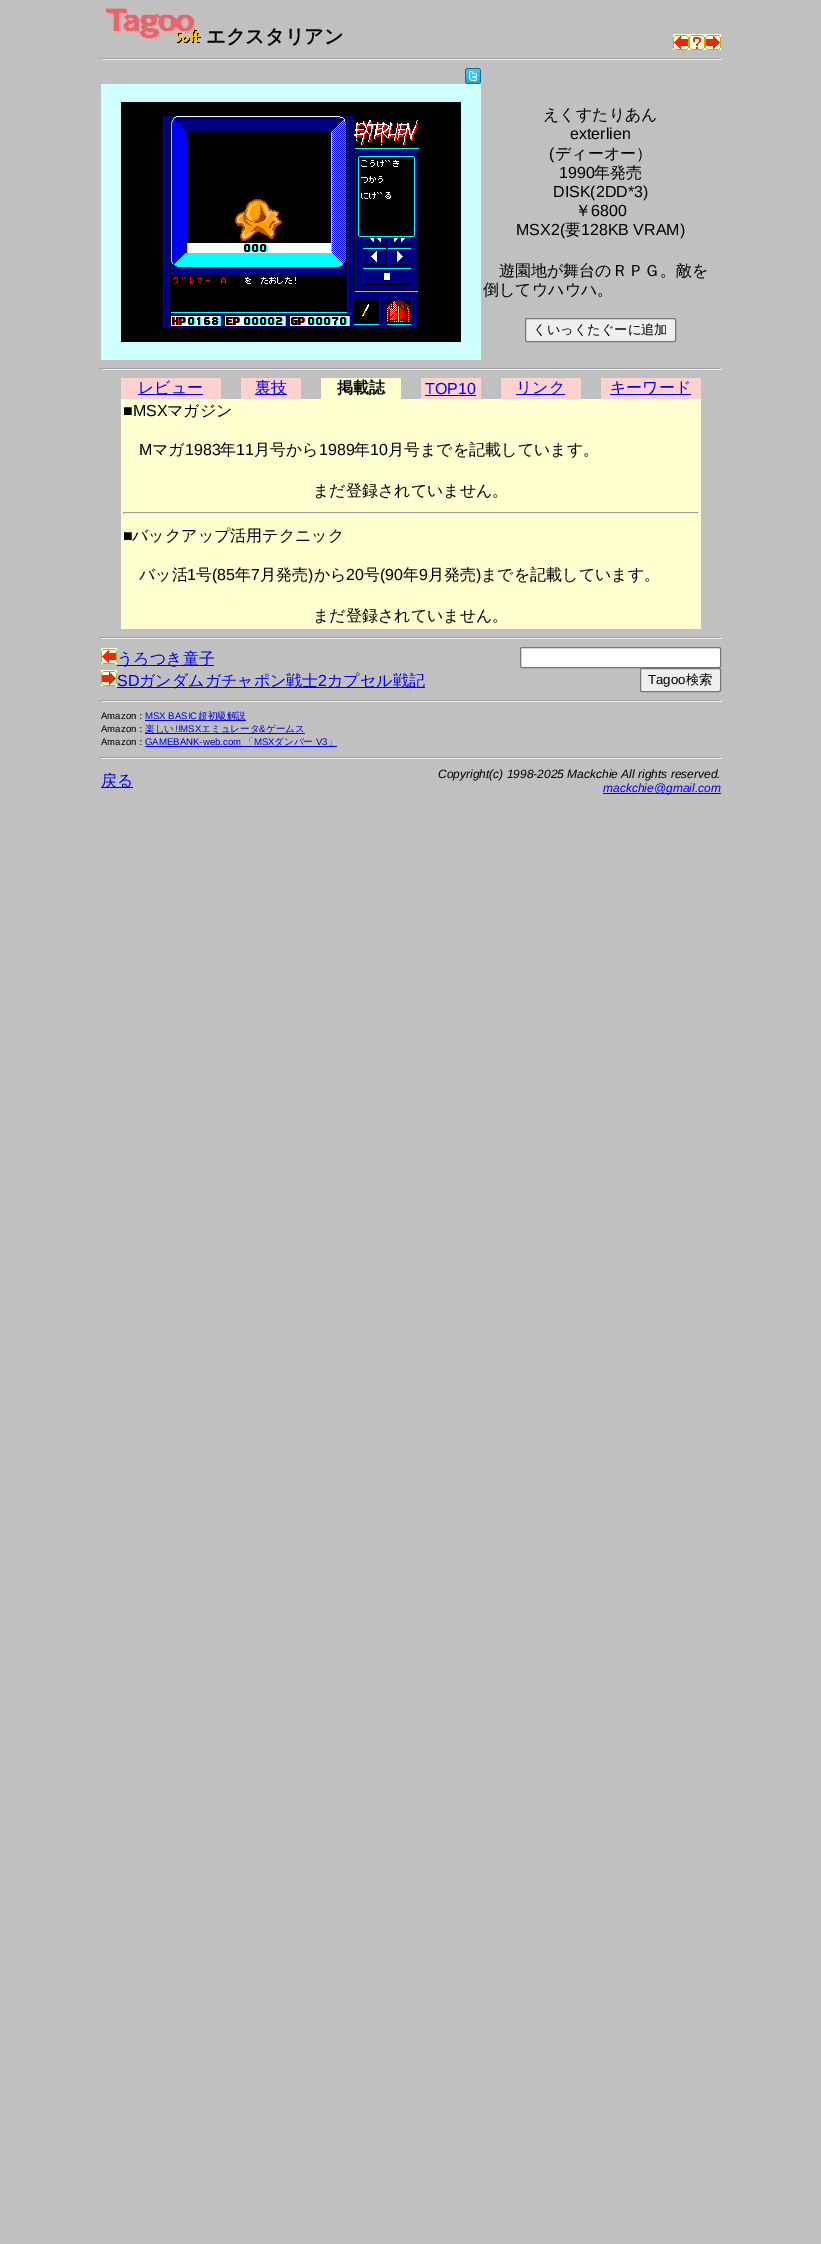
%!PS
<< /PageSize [821 2244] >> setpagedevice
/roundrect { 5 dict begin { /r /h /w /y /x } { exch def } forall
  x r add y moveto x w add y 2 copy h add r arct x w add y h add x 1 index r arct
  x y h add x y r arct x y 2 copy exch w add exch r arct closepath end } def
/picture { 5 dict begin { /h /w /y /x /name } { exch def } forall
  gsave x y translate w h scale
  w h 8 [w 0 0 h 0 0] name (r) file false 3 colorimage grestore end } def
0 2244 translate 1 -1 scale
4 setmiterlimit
0.753 setgray
0 0 821 2244 rectfill
(img1.rgb) 106 8 95 35 picture
/WenQuanYiZenHei-Bold [19.25 0 0 -19.25 0 0] selectfont
0 setgray
206 43 moveto (エクスタリアン) show
(img2.rgb) 673 34 16 16 picture
(img3.rgb) 689 34 16 16 picture
(img4.rgb) 705 34 16 16 picture
0.624 setgray
100 58 622 1 rectfill
0.933 setgray
721 58 1 2 rectfill
100 59 622 1 rectfill
0.624 setgray
100 58 1 2 rectfill
(img5.rgb) 465 68 16 16 picture
0.816 1 1 setrgbcolor
101 84 380 276 rectfill
(img6.rgb) 121 102 340 240 picture
/WenQuanYiZenHei-Medium [16 0 0 -16 0 0] selectfont
0 setgray
543 120 moveto (えくすたりあん) show
/LiberationSans-Regular [16 0 0 -16 0 0] selectfont
570 139 moveto (exterlien) show
549 159 moveto (\() show
/WenQuanYiZenHei-Medium [16 0 0 -16 0 0] selectfont
555 159 moveto (ディーオー）) show
/LiberationSans-Regular [16 0 0 -16 0 0] selectfont
559 178 moveto (1990) show
/WenQuanYiZenHei-Medium [16 0 0 -16 0 0] selectfont
594 178 moveto (年発売) show
/LiberationSans-Regular [16 0 0 -16 0 0] selectfont
553 197 moveto (DISK\(2DD*3\)) show
/WenQuanYiZenHei-Medium [16 0 0 -16 0 0] selectfont
575 216 moveto (￥) show
/LiberationSans-Regular [16 0 0 -16 0 0] selectfont
591 216 moveto (6800) show
516 235 moveto (MSX2\() show
/WenQuanYiZenHei-Medium [16 0 0 -16 0 0] selectfont
565 235 moveto (要) show
/LiberationSans-Regular [16 0 0 -16 0 0] selectfont
581 235 moveto (128KB VRAM\)) show
/WenQuanYiZenHei-Medium [16 0 0 -16 0 0] selectfont
499 276 moveto (遊園地が舞台のＲＰＧ。敵を) show
483 295 moveto (倒してウハウハ。) show
0.937 setgray
525.5 318.5 150 23 1.5 roundrect gsave fill grestore
0.463 setgray
stroke
/WenQuanYiZenHei-Medium [13.25 0 0 -13.25 0 0] selectfont
0 setgray
533 334 moveto (くいっくたぐーに追加) show
0.624 setgray
100 368 622 1 rectfill
0.933 setgray
721 368 1 2 rectfill
100 369 622 1 rectfill
0.624 setgray
100 368 1 2 rectfill
1 0.816 0.816 setrgbcolor
121 378 100 21 rectfill
0 0 0.933 setrgbcolor
138 394 65 1 rectfill
/WenQuanYiZenHei-Medium [16 0 0 -16 0 0] selectfont
138 393 moveto (レビュー) show
1 0.816 0.816 setrgbcolor
241 378 60 21 rectfill
0 0 0.933 setrgbcolor
255 394 32 1 rectfill
255 393 moveto (裏技) show
1 1 0.816 setrgbcolor
321 378 80 21 rectfill
/WenQuanYiZenHei-Bold [16 0 0 -16 0 0] selectfont
0 setgray
337 393 moveto (掲載誌) show
1 0.816 0.816 setrgbcolor
421 378 60 21 rectfill
/LiberationSans-Regular [16 0 0 -16 0 0] selectfont
0 0 0.933 setrgbcolor
425 394 moveto (TOP10) show
425 395 51 1 rectfill
1 0.816 0.816 setrgbcolor
501 378 80 21 rectfill
0 0 0.933 setrgbcolor
516 394 49 1 rectfill
/WenQuanYiZenHei-Medium [16 0 0 -16 0 0] selectfont
516 393 moveto (リンク) show
1 0.816 0.816 setrgbcolor
601 378 100 21 rectfill
0 0 0.933 setrgbcolor
610 394 81 1 rectfill
610 393 moveto (キーワード) show
1 1 0.816 setrgbcolor
121 399 580 230 rectfill
/LiberationSans-Regular [16 0 0 -16 0 0] selectfont
0 setgray
123 416 moveto (■MSX) show
/WenQuanYiZenHei-Medium [16 0 0 -16 0 0] selectfont
167 416 moveto (マガジン) show
/LiberationSans-Regular [16 0 0 -16 0 0] selectfont
139 455 moveto (M) show
/WenQuanYiZenHei-Medium [16 0 0 -16 0 0] selectfont
152 455 moveto (マガ) show
/LiberationSans-Regular [16 0 0 -16 0 0] selectfont
185 455 moveto (1983) show
/WenQuanYiZenHei-Medium [16 0 0 -16 0 0] selectfont
220 455 moveto (年) show
/LiberationSans-Regular [16 0 0 -16 0 0] selectfont
236 455 moveto (11) show
/WenQuanYiZenHei-Medium [16 0 0 -16 0 0] selectfont
254 455 moveto (月号から) show
/LiberationSans-Regular [16 0 0 -16 0 0] selectfont
319 455 moveto (1989) show
/WenQuanYiZenHei-Medium [16 0 0 -16 0 0] selectfont
354 455 moveto (年) show
/LiberationSans-Regular [16 0 0 -16 0 0] selectfont
370 455 moveto (10) show
/WenQuanYiZenHei-Medium [16 0 0 -16 0 0] selectfont
388 455 moveto (月号までを記載しています。) show
313 496 moveto (まだ登録されていません。) show
0.624 setgray
123 512 576 1 rectfill
0.933 setgray
698 512 1 2 rectfill
123 513 576 1 rectfill
0.624 setgray
123 512 1 2 rectfill
/LiberationSans-Regular [16 0 0 -16 0 0] selectfont
0 setgray
123 541 moveto (■) show
/WenQuanYiZenHei-Medium [16 0 0 -16 0 0] selectfont
132 541 moveto (バックアップ活用テクニック) show
139 580 moveto (バッ活) show
/LiberationSans-Regular [16 0 0 -16 0 0] selectfont
187 580 moveto (1) show
/WenQuanYiZenHei-Medium [16 0 0 -16 0 0] selectfont
196 580 moveto (号) show
/LiberationSans-Regular [16 0 0 -16 0 0] selectfont
212 580 moveto (\(85) show
/WenQuanYiZenHei-Medium [16 0 0 -16 0 0] selectfont
235 580 moveto (年) show
/LiberationSans-Regular [16 0 0 -16 0 0] selectfont
251 580 moveto (7) show
/WenQuanYiZenHei-Medium [16 0 0 -16 0 0] selectfont
260 580 moveto (月発売) show
/LiberationSans-Regular [16 0 0 -16 0 0] selectfont
308 580 moveto (\)) show
/WenQuanYiZenHei-Medium [16 0 0 -16 0 0] selectfont
314 580 moveto (から) show
/LiberationSans-Regular [16 0 0 -16 0 0] selectfont
346 580 moveto (20) show
/WenQuanYiZenHei-Medium [16 0 0 -16 0 0] selectfont
364 580 moveto (号) show
/LiberationSans-Regular [16 0 0 -16 0 0] selectfont
380 580 moveto (\(90) show
/WenQuanYiZenHei-Medium [16 0 0 -16 0 0] selectfont
403 580 moveto (年) show
/LiberationSans-Regular [16 0 0 -16 0 0] selectfont
419 580 moveto (9) show
/WenQuanYiZenHei-Medium [16 0 0 -16 0 0] selectfont
428 580 moveto (月発売) show
/LiberationSans-Regular [16 0 0 -16 0 0] selectfont
476 580 moveto (\)) show
/WenQuanYiZenHei-Medium [16 0 0 -16 0 0] selectfont
481 580 moveto (までを記載しています。) show
313 621 moveto (まだ登録されていません。) show
0.624 setgray
100 637 622 1 rectfill
0.933 setgray
721 637 1 2 rectfill
100 638 622 1 rectfill
0.624 setgray
100 637 1 2 rectfill
(img2.rgb) 101 648 16 16 picture
0 0 0.933 setrgbcolor
117 665 97 1 rectfill
117 664 moveto (うろつき童子) show
(img4.rgb) 101 670 16 16 picture
/LiberationSans-Regular [16 0 0 -16 0 0] selectfont
117 686 moveto (SD) show
117 687 308 1 rectfill
/WenQuanYiZenHei-Medium [16 0 0 -16 0 0] selectfont
139 686 moveto (ガンダムガチャポン戦士) show
/LiberationSans-Regular [16 0 0 -16 0 0] selectfont
318 686 moveto (2) show
/WenQuanYiZenHei-Medium [16 0 0 -16 0 0] selectfont
327 686 moveto (カプセル戦記) show
1 setgray
520.5 647.5 200 20 1.5 roundrect gsave fill grestore
0.463 setgray
stroke
0.937 setgray
640.5 668.5 80 23 1.5 roundrect gsave fill grestore
0.463 setgray
stroke
/LiberationSans-Regular [13.25 0 0 -13.25 0 0] selectfont
0 setgray
648 684 moveto (Tagoo) show
/WenQuanYiZenHei-Medium [13.25 0 0 -13.25 0 0] selectfont
686 684 moveto (検索) show
0.624 setgray
100 700 622 1 rectfill
0.933 setgray
721 700 1 2 rectfill
100 701 622 1 rectfill
0.624 setgray
100 700 1 2 rectfill
/LiberationSans-Regular [9.6 0 0 -9.6 0 0] selectfont
0 setgray
101 719 moveto (Amazon) show
/WenQuanYiZenHei-Medium [9.6 0 0 -9.6 0 0] selectfont
136 719 moveto (：) show
/LiberationSans-Regular [9.6 0 0 -9.6 0 0] selectfont
0 0 0.933 setrgbcolor
145 719 moveto (MSX BASIC) show
145 720 101 1 rectfill
/WenQuanYiZenHei-Medium [9.6 0 0 -9.6 0 0] selectfont
198 719 moveto (超初級解説) show
/LiberationSans-Regular [9.6 0 0 -9.6 0 0] selectfont
0 setgray
101 732 moveto (Amazon) show
/WenQuanYiZenHei-Medium [9.6 0 0 -9.6 0 0] selectfont
136 732 moveto (：) show
0 0 0.933 setrgbcolor
145 733 160 1 rectfill
145 732 moveto (楽しい) show
/LiberationSans-Regular [9.6 0 0 -9.6 0 0] selectfont
175 732 moveto (!!MSX) show
/WenQuanYiZenHei-Medium [9.6 0 0 -9.6 0 0] selectfont
201 732 moveto (エミュレータ) show
/LiberationSans-Regular [9.6 0 0 -9.6 0 0] selectfont
259 732 moveto (&) show
/WenQuanYiZenHei-Medium [9.6 0 0 -9.6 0 0] selectfont
266 732 moveto (ゲームス) show
/LiberationSans-Regular [9.6 0 0 -9.6 0 0] selectfont
0 setgray
101 745 moveto (Amazon) show
/WenQuanYiZenHei-Medium [9.6 0 0 -9.6 0 0] selectfont
136 745 moveto (：) show
/LiberationSans-Regular [9.6 0 0 -9.6 0 0] selectfont
0 0 0.933 setrgbcolor
145 745 moveto (GAMEBANK-web.com) show
/WenQuanYiZenHei-Medium [9.6 0 0 -9.6 0 0] selectfont
244 745 moveto (「) show
/LiberationSans-Regular [9.6 0 0 -9.6 0 0] selectfont
254 745 moveto (MSX) show
145 746 192 1 rectfill
/WenQuanYiZenHei-Medium [9.6 0 0 -9.6 0 0] selectfont
274 745 moveto (ダンパー) show
/LiberationSans-Regular [9.6 0 0 -9.6 0 0] selectfont
316 745 moveto (V3) show
/WenQuanYiZenHei-Medium [9.6 0 0 -9.6 0 0] selectfont
328 745 moveto (」) show
0.624 setgray
100 757 622 1 rectfill
0.933 setgray
721 757 1 2 rectfill
100 758 622 1 rectfill
0.624 setgray
100 757 1 2 rectfill
0 0 0.933 setrgbcolor
101 787 32 1 rectfill
/WenQuanYiZenHei-Medium [16 0 0 -16 0 0] selectfont
101 786 moveto (戻る) show
/LiberationSans-Italic [12 0 0 -12 0 0] selectfont
0 setgray
438 778 moveto (Copyright\(c\) 1998-2025 Mackchie All rights reserved.) show
0 0 0.933 setrgbcolor
603 793 118 1 rectfill
603 792 moveto (mackchie@gmail.com) show
showpage
